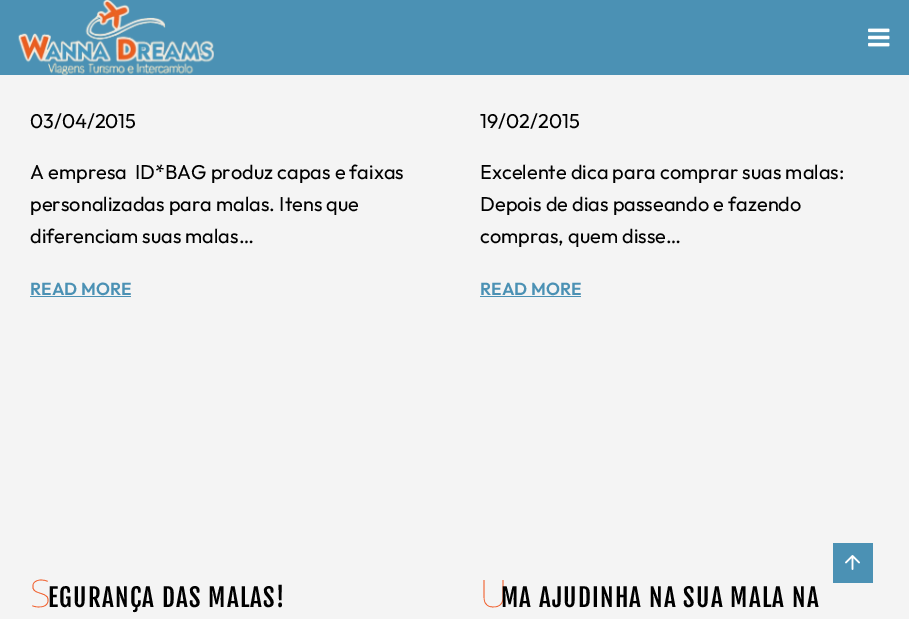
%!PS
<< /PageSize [909 619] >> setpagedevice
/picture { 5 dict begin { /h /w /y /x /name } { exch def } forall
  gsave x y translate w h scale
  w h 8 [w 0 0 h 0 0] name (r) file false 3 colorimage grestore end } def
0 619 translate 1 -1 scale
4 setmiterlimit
0.957 setgray
0 0 909 619 rectfill
0.294 0.569 0.706 setrgbcolor
0 0 909 75 rectfill
(img1.rgb) 18 0 196 75 picture
(img2.rgb) 868 28 22 19 picture
/Outfit-Regular [20 0 0 -20 0 0] selectfont
0 setgray
30 128 moveto (03/04/2015) show
30 179 moveto (A empresa  ID*BAG produz capas e faixas) show
30 211 moveto (personalizadas para malas. Itens que) show
30 243 moveto (diferenciam suas malas…) show
/Outfit-SemiBold [17.5 0 0 -17.5 0 0] selectfont
0.294 0.569 0.706 setrgbcolor
30 295 moveto (READ MORE) show
30 296 101 1 rectfill
/Outfit-Regular [20 0 0 -20 0 0] selectfont
0 setgray
480 128 moveto (19/02/2015) show
480 179 moveto (Excelente dica para comprar suas malas:) show
480 211 moveto (Depois de dias passeando e fazendo) show
480 243 moveto (compras, quem disse…) show
/Outfit-SemiBold [17.5 0 0 -17.5 0 0] selectfont
0.294 0.569 0.706 setrgbcolor
480 295 moveto (READ MORE) show
480 296 101 1 rectfill
/NotoSans-Thin [38 0 0 -38 0 0] selectfont
0.945 0.353 0.145 setrgbcolor
30 607 moveto 1.25 0 (S) ashow
/FjallaOne-Regular [25 0 0 -25 0 0] selectfont
0 setgray
48 607 moveto 1.25 0 (EGURANÇA DAS MALAS!) ashow
/NotoSans-Thin [38 0 0 -38 0 0] selectfont
0.945 0.353 0.145 setrgbcolor
480 607 moveto 1.25 0 (U) ashow
/FjallaOne-Regular [25 0 0 -25 0 0] selectfont
0 setgray
501 607 moveto 1.25 0 (MA AJUDINHA NA SUA MALA NA) ashow
0.294 0.569 0.706 setrgbcolor
833 543 40 40 rectfill
(img3.rgb) 845 555 15 15 picture
showpage
